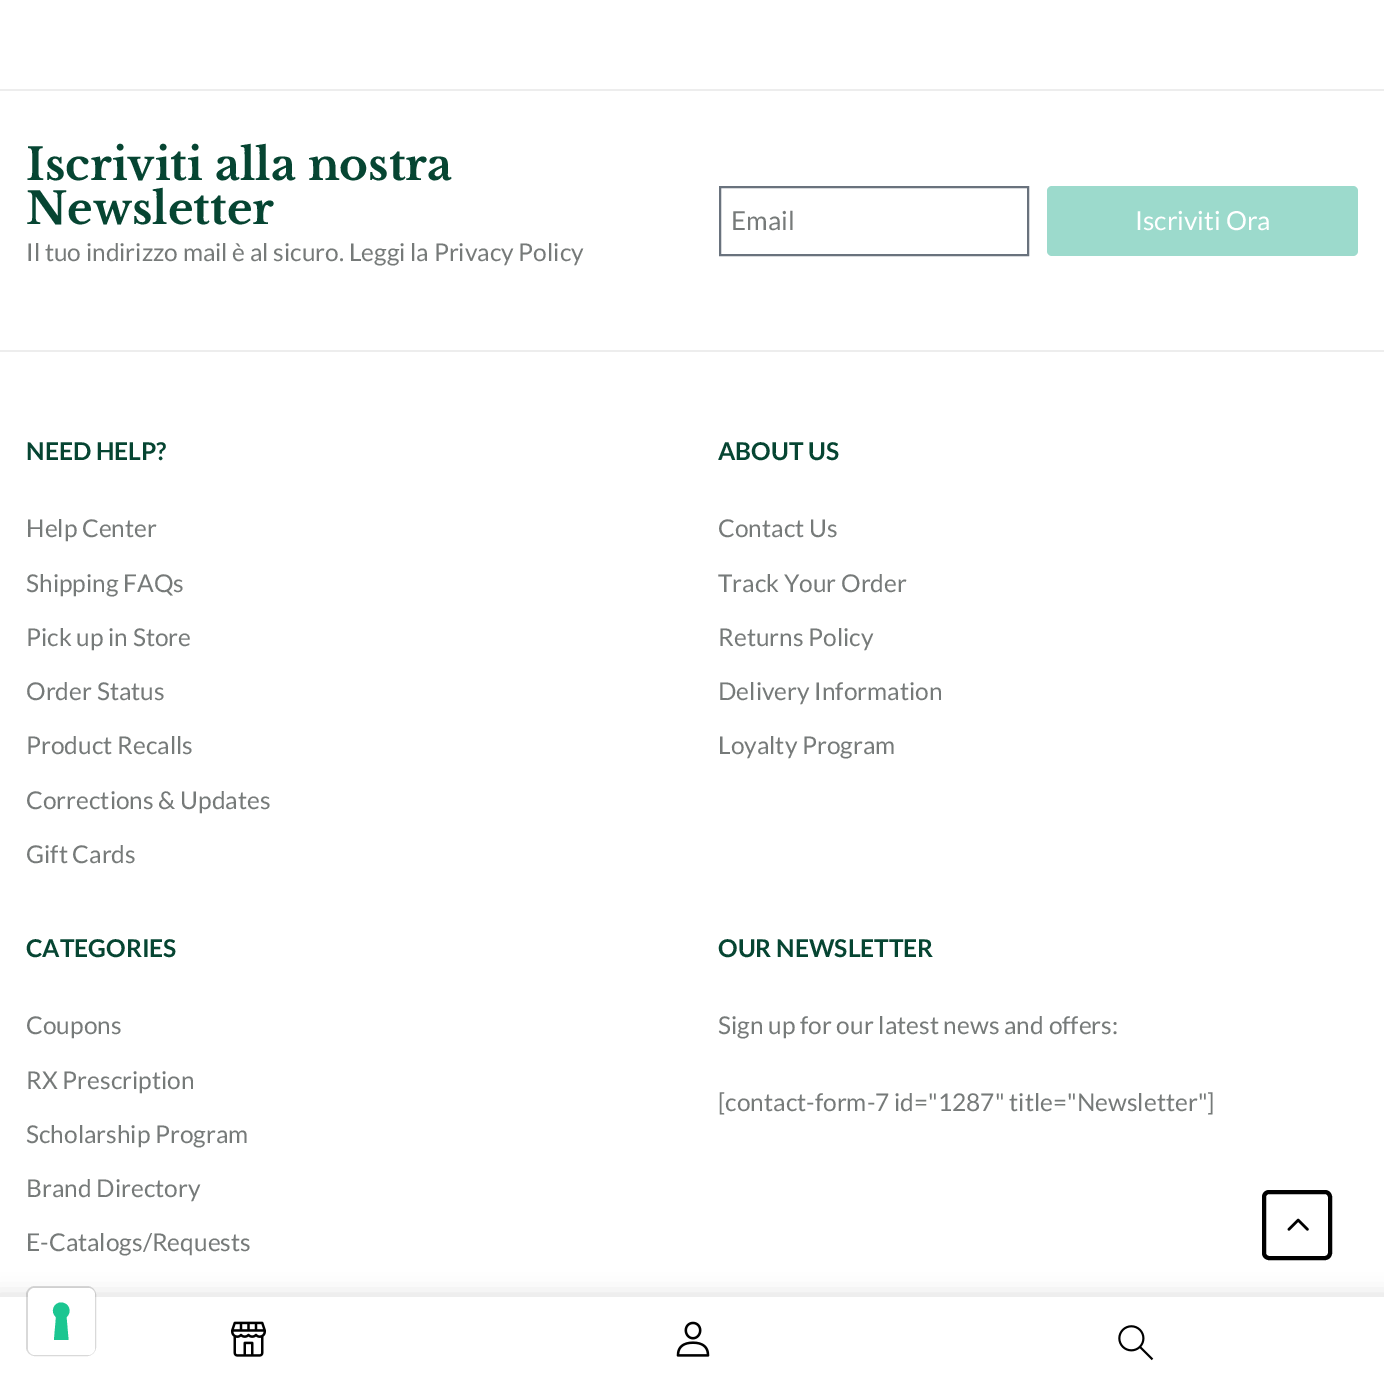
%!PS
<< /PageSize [1384 1381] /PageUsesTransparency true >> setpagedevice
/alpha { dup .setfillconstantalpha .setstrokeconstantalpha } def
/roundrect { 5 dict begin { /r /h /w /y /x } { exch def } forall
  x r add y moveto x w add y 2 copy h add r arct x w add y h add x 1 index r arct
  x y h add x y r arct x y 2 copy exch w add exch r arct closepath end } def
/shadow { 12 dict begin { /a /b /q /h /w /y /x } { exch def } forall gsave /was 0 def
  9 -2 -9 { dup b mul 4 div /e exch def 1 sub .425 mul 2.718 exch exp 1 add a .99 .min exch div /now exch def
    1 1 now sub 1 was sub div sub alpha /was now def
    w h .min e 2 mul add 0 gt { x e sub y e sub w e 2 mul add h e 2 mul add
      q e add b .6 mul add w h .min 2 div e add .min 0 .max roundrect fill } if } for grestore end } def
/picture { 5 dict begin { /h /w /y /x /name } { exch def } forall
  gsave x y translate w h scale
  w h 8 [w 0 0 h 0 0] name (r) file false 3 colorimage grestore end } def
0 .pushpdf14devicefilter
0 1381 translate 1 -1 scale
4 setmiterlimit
1 setgray
0 0 1384 1381 rectfill
0.929 setgray
0 89 1384 2 rectfill
/LibreBaskerville-Bold [43.75 0 0 -43.75 0 0] selectfont
0.024 0.271 0.196 setrgbcolor
26 180 moveto (Iscriviti alla nostra) show
26 224 moveto (Newsletter) show
/Lato-Regular [24.5 0 0 -24.5 0 0] selectfont
0.463 0.478 0.475 setrgbcolor
26 261 moveto (Il tuo indirizzo mail è al sicuro. Leggi la Privacy Policy) show
0.412 0.447 0.49 setrgbcolor
2 setlinewidth
720 187 308 68 rectstroke
/Lato-Regular [26.25 0 0 -26.25 0 0] selectfont
0.463 0.478 0.475 setrgbcolor
731 230 moveto (Email) show
0.612 0.855 0.8 setrgbcolor
1047 186 311 70 5 roundrect fill
1 setgray
1135 230 moveto (Iscriviti Ora) show
0.929 setgray
0 350 1384 2 rectfill
/Lato-Bold [24.5 0 0 -24.5 0 0] selectfont
0.024 0.271 0.196 setrgbcolor
26 460 moveto (NEED HELP?) show
/Lato-Regular [24.5 0 0 -24.5 0 0] selectfont
0.463 0.478 0.475 setrgbcolor
26 537 moveto (Help Center) show
26 592 moveto (Shipping FAQs) show
26 646 moveto (Pick up in Store) show
26 700 moveto (Order Status) show
26 754 moveto (Product Recalls) show
26 809 moveto (Corrections & Updates) show
26 863 moveto (Gift Cards) show
/Lato-Bold [24.5 0 0 -24.5 0 0] selectfont
0.024 0.271 0.196 setrgbcolor
718 460 moveto (ABOUT US) show
/Lato-Regular [24.5 0 0 -24.5 0 0] selectfont
0.463 0.478 0.475 setrgbcolor
718 537 moveto (Contact Us) show
718 592 moveto (Track Your Order) show
718 646 moveto (Returns Policy) show
718 700 moveto (Delivery Information) show
718 754 moveto (Loyalty Program) show
/Lato-Bold [24.5 0 0 -24.5 0 0] selectfont
0.024 0.271 0.196 setrgbcolor
26 957 moveto (CATEGORIES) show
/Lato-Regular [24.5 0 0 -24.5 0 0] selectfont
0.463 0.478 0.475 setrgbcolor
26 1034 moveto (Coupons) show
26 1089 moveto (RX Prescription) show
26 1143 moveto (Scholarship Program) show
26 1197 moveto (Brand Directory) show
26 1251 moveto (E-Catalogs/Requests) show
/Lato-Bold [24.5 0 0 -24.5 0 0] selectfont
0.024 0.271 0.196 setrgbcolor
718 957 moveto (OUR NEWSLETTER) show
/Lato-Regular [24.5 0 0 -24.5 0 0] selectfont
0.463 0.478 0.475 setrgbcolor
718 1034 moveto (Sign up for our latest news and offers:) show
718 1111 moveto ([contact-form-7 id="1287" title="Newsletter"]) show
0.561 setgray
-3 1295 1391 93 0 10.5 0.3 shadow
1 setgray
0 1297 1384 84 rectfill
(img1.rgb) 231 1321 35 36 picture
(img2.rgb) 676 1321 34 36 picture
(img3.rgb) 1118 1325 36 36 picture
0 setgray
4 setlinewidth
1264 1192 66 66 5 roundrect stroke
(img4.rgb) 1287 1218 22 13 picture
0.15 alpha
2 setlinewidth
27 1287 68 68 8 roundrect stroke
1 alpha
1 setgray
28 1288 67 67 7 roundrect fill
0.11 0.776 0.569 setrgbcolor
newpath 61 1302.5 moveto 69 1302.5 72.5 1312 66.5 1317 curveto 68.5 1340 lineto 54 1340 lineto 56 1317 lineto 50 1312 53.5 1302.5 61 1302.5 curveto closepath eofill
.poppdf14devicefilter showpage
